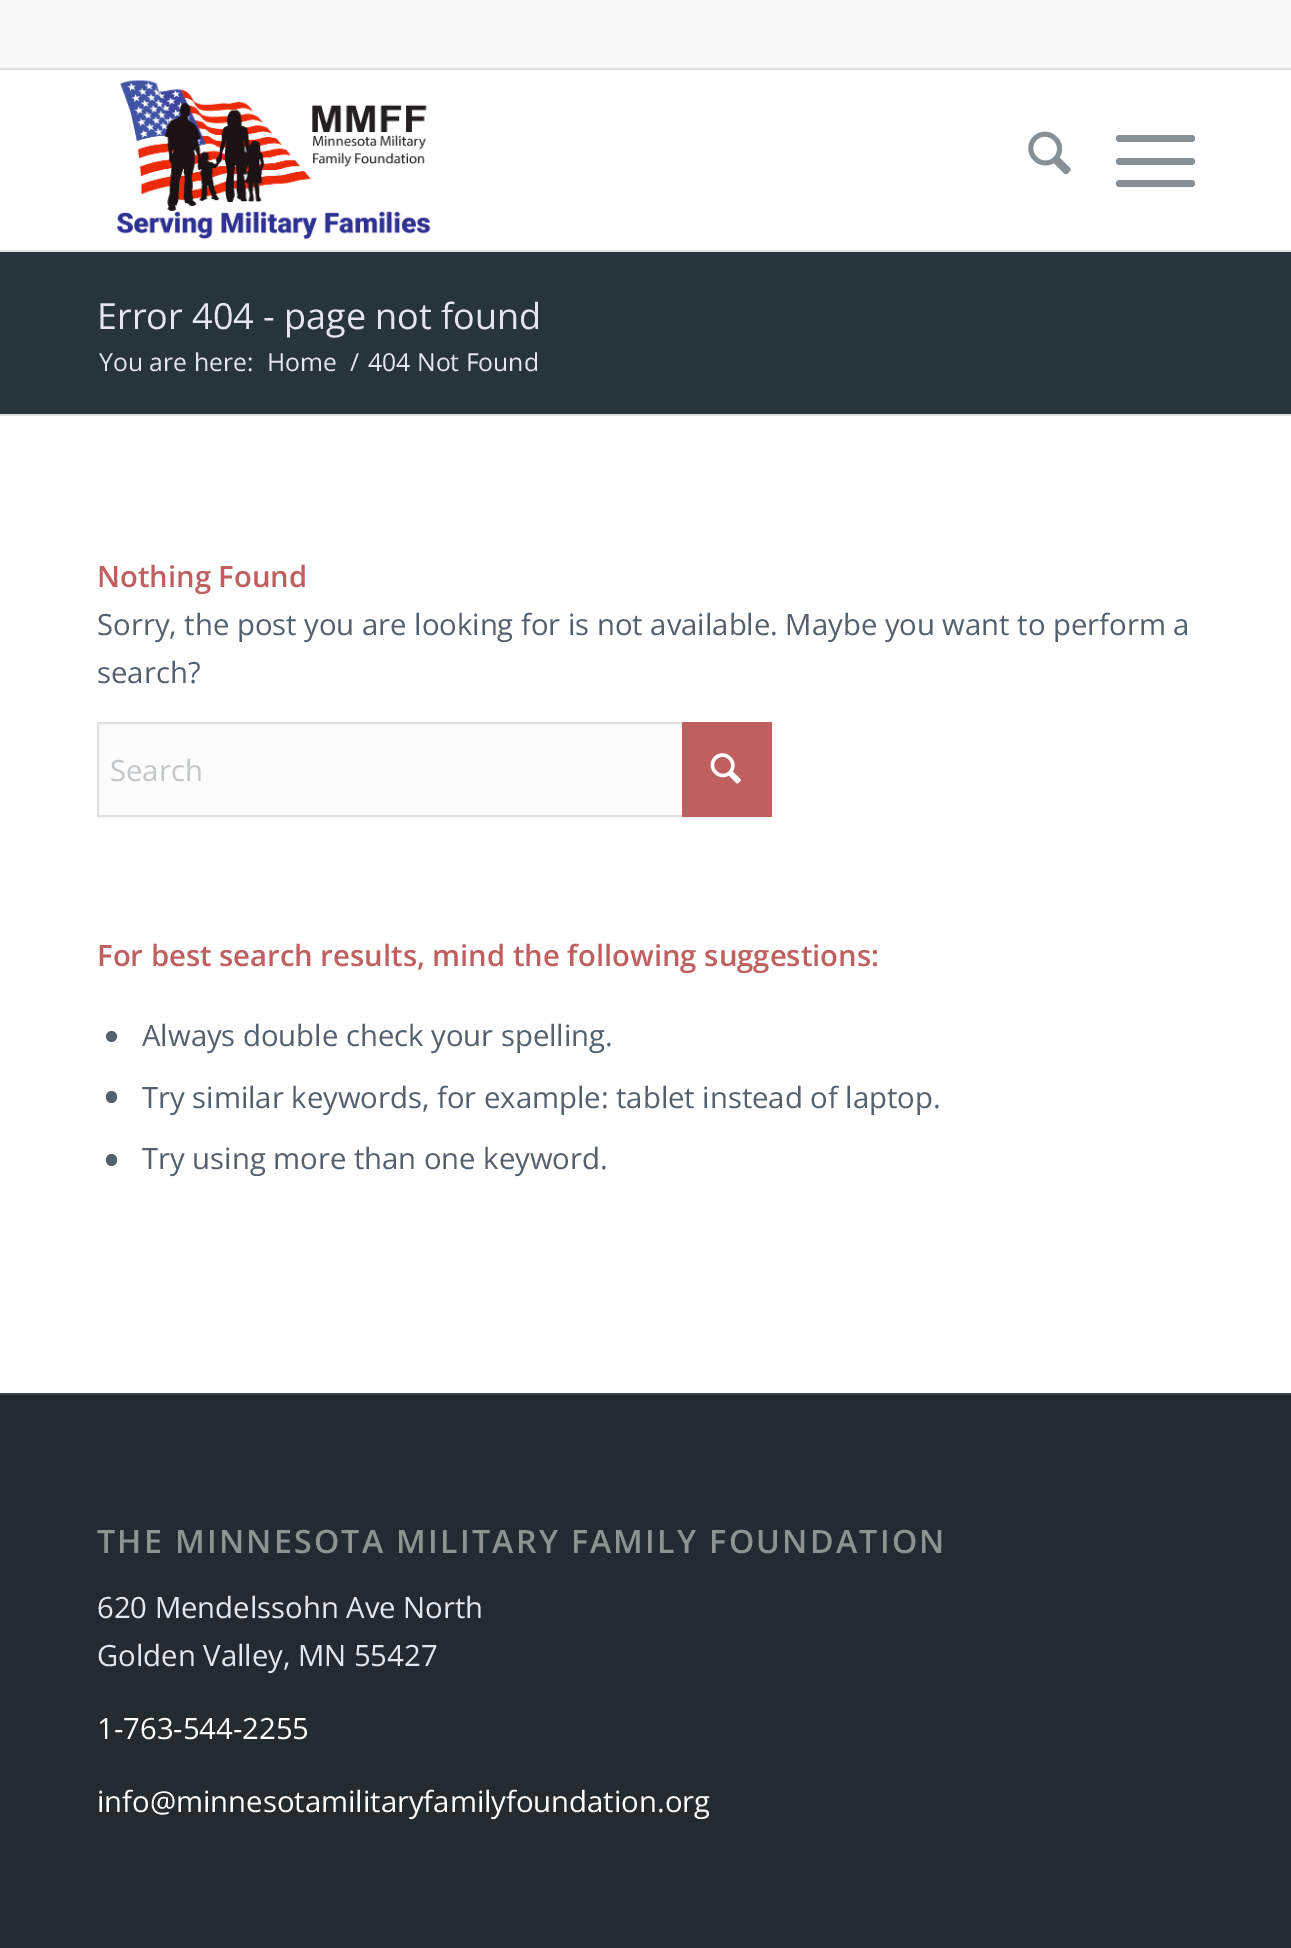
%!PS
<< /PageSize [1291 1948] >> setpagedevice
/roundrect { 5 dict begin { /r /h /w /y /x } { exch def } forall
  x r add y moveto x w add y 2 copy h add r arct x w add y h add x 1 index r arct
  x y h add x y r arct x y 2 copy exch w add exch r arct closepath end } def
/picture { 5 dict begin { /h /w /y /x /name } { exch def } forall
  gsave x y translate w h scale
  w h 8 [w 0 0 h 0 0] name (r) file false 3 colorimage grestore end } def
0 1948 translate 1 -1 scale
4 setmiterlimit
1 setgray
0 0 1291 1948 rectfill
0.973 setgray
0 0 1291 68 rectfill
0.882 setgray
0 68 1291 2 rectfill
0 250 1291 2 rectfill
(img1.rgb) 116 80 315 160 picture
(img2.rgb) 1028 131 43 44 picture
0.533 0.565 0.584 setrgbcolor
1116 158 79 7 3.5 roundrect fill
1116 135 79 7 3.5 roundrect fill
1116 180 79 7 3.5 roundrect fill
0.157 0.204 0.235 setrgbcolor
0 252 1291 162 rectfill
/OpenSans-Regular [36 0 0 -36 0 0] selectfont
0.894 0.902 0.941 setrgbcolor
97 329 moveto (Error 404 - page not found) show
/OpenSans-Regular [24.75 0 0 -24.75 0 0] selectfont
99 371 moveto (You are here:) show
267 371 moveto (Home) show
350 371 moveto (/) show
368 371 moveto (404 Not Found) show
0.882 setgray
0 414 1291 2 rectfill
/OpenSans-SemiBold [29.25 0 0 -29.25 0 0] selectfont
0.753 0.373 0.373 setrgbcolor
97 587 moveto (Nothing Found) show
/OpenSans-Regular [29.25 0 0 -29.25 0 0] selectfont
0.333 0.376 0.431 setrgbcolor
97 635 moveto (Sorry, the post you are looking for is not available. Maybe you want to perform a) show
97 683 moveto (search?) show
0.988 setgray
99 724 583 91 rectfill
0.882 setgray
2 setlinewidth
98 723 673 93 rectstroke
0.753 0.373 0.373 setrgbcolor
682 722 90 95 rectfill
0.761 0.776 0.788 setrgbcolor
110 781 moveto (Search) show
(img3.rgb) 710 753 31 31 picture
/OpenSans-SemiBold [29.25 0 0 -29.25 0 0] selectfont
0.753 0.373 0.373 setrgbcolor
97 966 moveto (For best search results, mind the following suggestions:) show
0.333 0.376 0.431 setrgbcolor
newpath 111.5 1036.5 5.5 0 360 arc closepath fill
/OpenSans-Regular [29.25 0 0 -29.25 0 0] selectfont
142 1046 moveto (Always double check your spelling.) show
106 1091 11 12 5.5 roundrect fill
142 1108 moveto (Try similar keywords, for example: tablet instead of laptop.) show
106 1154 11 12 5.5 roundrect fill
142 1169 moveto (Try using more than one keyword.) show
0.137 0.169 0.188 setrgbcolor
0 1395 1291 553 rectfill
0.22 0.282 0.322 setrgbcolor
0 1393 1291 2 rectfill
/OpenSans-SemiBold [32.2 0 0 -32.2 0 0] selectfont
0.557 0.576 0.573 setrgbcolor
97 1553 moveto 2.25 0 (THE MINNESOTA MILITARY FAMILY FOUNDATION) ashow
/OpenSans-Regular [29.25 0 0 -29.25 0 0] selectfont
0.894 0.902 0.941 setrgbcolor
97 1618 moveto (620 Mendelssohn Ave North) show
97 1666 moveto (Golden Valley, MN 55427) show
1 setgray
97 1739 moveto (1-763-544-2255) show
97 1812 moveto (info@minnesotamilitaryfamilyfoundation.org) show
showpage
